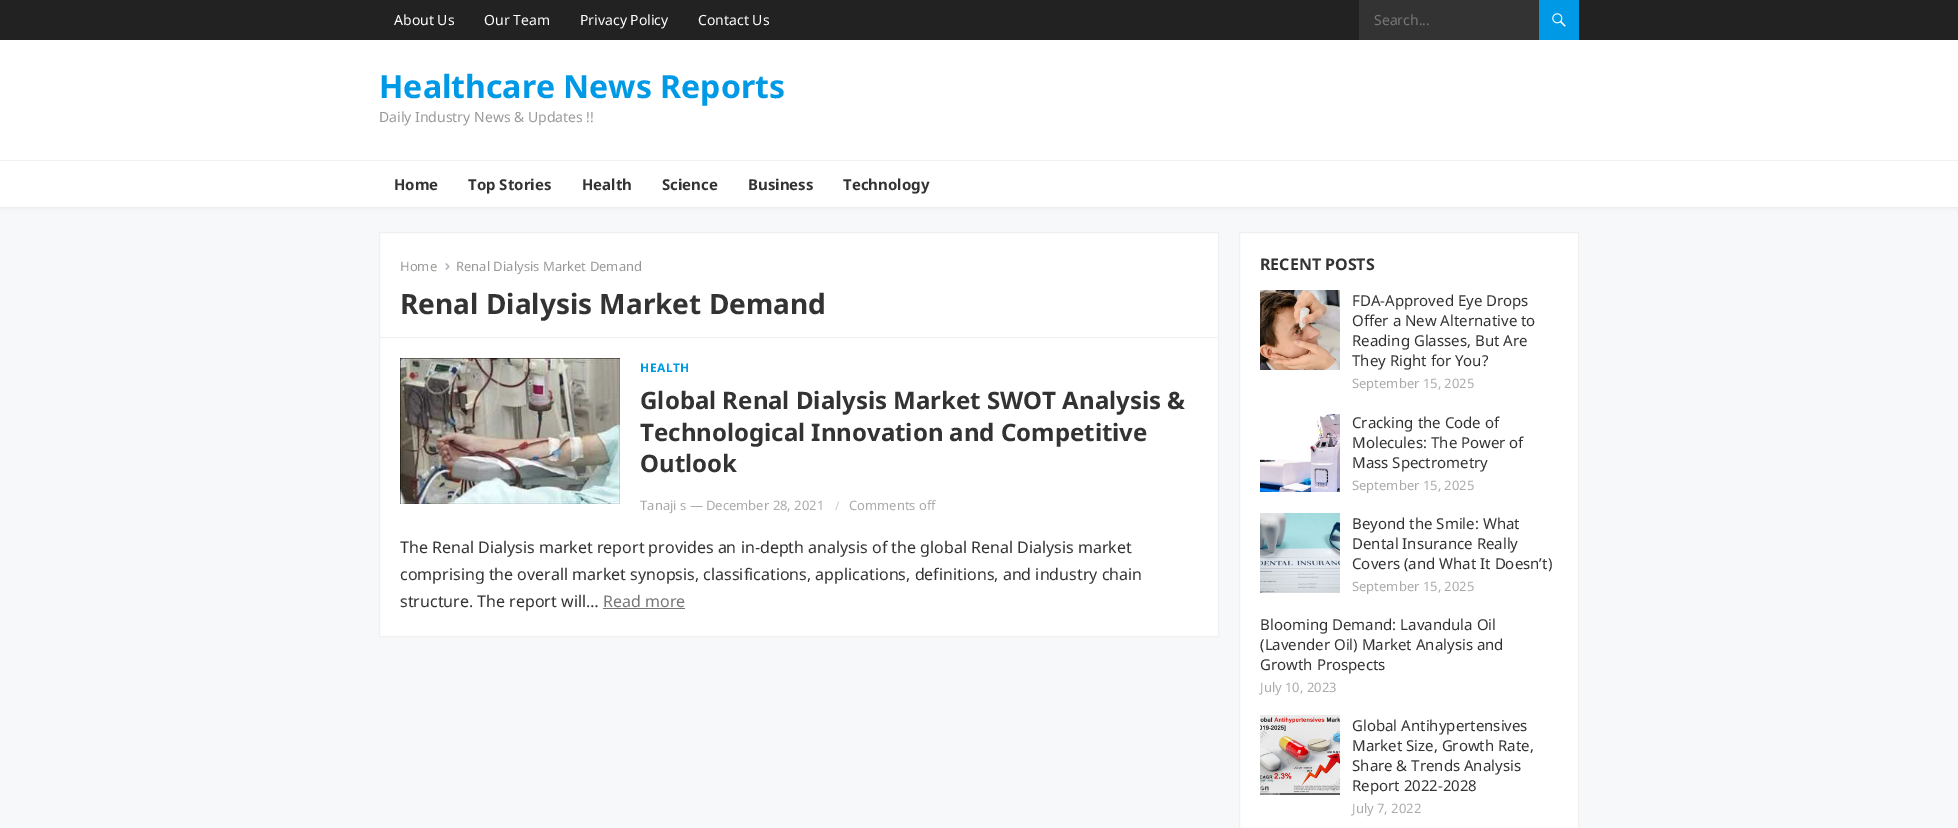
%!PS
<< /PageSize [1958 828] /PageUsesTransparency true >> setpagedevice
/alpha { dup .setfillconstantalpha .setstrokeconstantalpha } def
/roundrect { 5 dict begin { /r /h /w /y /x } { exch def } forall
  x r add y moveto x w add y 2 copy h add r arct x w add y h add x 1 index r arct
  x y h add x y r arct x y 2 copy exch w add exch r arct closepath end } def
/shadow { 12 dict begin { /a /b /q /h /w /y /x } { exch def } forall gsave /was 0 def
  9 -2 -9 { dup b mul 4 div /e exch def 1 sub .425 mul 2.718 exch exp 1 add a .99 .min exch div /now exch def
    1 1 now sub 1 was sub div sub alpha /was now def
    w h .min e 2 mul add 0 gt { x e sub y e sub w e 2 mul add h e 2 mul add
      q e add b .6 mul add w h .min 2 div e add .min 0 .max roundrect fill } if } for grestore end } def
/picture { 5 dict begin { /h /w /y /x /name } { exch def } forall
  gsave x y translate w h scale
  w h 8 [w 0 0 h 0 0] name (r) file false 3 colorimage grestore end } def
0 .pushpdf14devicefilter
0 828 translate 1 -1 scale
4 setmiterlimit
0.969 0.973 0.976 setrgbcolor
0 0 1958 828 rectfill
0.388 setgray
0 1 1958 207 0 1.5 0.1 shadow
1 setgray
0 40 1958 167 rectfill
0.133 setgray
0 0 1958 40 rectfill
/NotoSans-Regular [14 0 0 -14 0 0] selectfont
1 setgray
394 25 moveto (About Us) show
484 25 moveto (Our Team) show
580 25 moveto (Privacy Policy) show
698 25 moveto (Contact Us) show
0.2 setgray
1359 0 180 40 rectfill
0.467 setgray
1374 25 moveto (Search...) show
0 0.6 0.898 setrgbcolor
1539 0 40 40 rectfill
(img1.rgb) 1552 13 14 14 picture
/NotoSans-Bold [32 0 0 -32 0 0] selectfont
379 98 moveto (Healthcare News Reports) show
/NotoSans-Regular [14 0 0 -14 0 0] selectfont
0.6 setgray
379 122 moveto (Daily Industry News & Updates !!) show
0.941 setgray
0 160 1958 1 rectfill
/NotoSans-Bold [15 0 0 -15 0 0] selectfont
0.2 setgray
394 190 moveto (Home) show
468 190 moveto (Top Stories) show
582 190 moveto (Health) show
662 190 moveto (Science) show
748 190 moveto (Business) show
843 190 moveto (Technology) show
1 setgray
379.5 232.5 839 404 0.5 roundrect gsave fill grestore
0.941 setgray
stroke
380 337 838 1 rectfill
/NotoSans-Regular [13 0 0 -13 0 0] selectfont
0.6 setgray
400 271 moveto (Home) show
(img2.rgb) 445 263 5 7 picture
456 271 moveto (Renal Dialysis Market Demand) show
/NotoSans-Bold [28 0 0 -28 0 0] selectfont
0.2 setgray
400 314 moveto (Renal Dialysis Market Demand) show
(img3.rgb) 400 358 220 146 picture
/NotoSans-Bold [12 0 0 -12 0 0] selectfont
0 0.6 0.898 setrgbcolor
640 372 moveto 0.5 0 (HEALTH) ashow
/NotoSans-Bold [24 0 0 -24 0 0] selectfont
0.2 setgray
640 409 moveto (Global Renal Dialysis Market SWOT Analysis &) show
640 441 moveto (Technological Innovation and Competitive) show
640 472 moveto (Outlook) show
/NotoSans-Regular [13 0 0 -13 0 0] selectfont
0.667 setgray
640 510 moveto (Tanaji s — December 28, 2021) show
/NotoSans-Regular [12 0 0 -12 0 0] selectfont
0.8 setgray
835 510 moveto (/) show
/NotoSans-Regular [13 0 0 -13 0 0] selectfont
0.667 setgray
849 510 moveto (Comments off) show
/NotoSans-Regular [16 0 0 -16 0 0] selectfont
0.2 setgray
400 553 moveto (The Renal Dialysis market report provides an in-depth analysis of the global Renal Dialysis market) show
400 580 moveto (comprising the overall market synopsis, classifications, applications, definitions, and industry chain) show
400 607 moveto (structure. The report will…) show
0.467 setgray
603 607 moveto (Read more) show
603 608 82 1 rectfill
1 setgray
1239.5 232.5 339 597 0.5 roundrect gsave fill grestore
0.941 setgray
stroke
/NotoSans-Bold [16 0 0 -16 0 0] selectfont
0.2 setgray
1260 270 moveto (RECENT POSTS) show
(img4.rgb) 1260 290 80 80 picture
/NotoSans-Regular [15 0 0 -15 0 0] selectfont
1352 306 moveto (FDA-Approved Eye Drops) show
1352 326 moveto (Offer a New Alternative to) show
1352 346 moveto (Reading Glasses, But Are) show
1352 366 moveto (They Right for You?) show
/NotoSans-Regular [13 0 0 -13 0 0] selectfont
0.667 setgray
1352 388 moveto (September 15, 2025) show
(img5.rgb) 1260 413 80 79 picture
/NotoSans-Regular [15 0 0 -15 0 0] selectfont
0.2 setgray
1352 428 moveto (Cracking the Code of) show
1352 448 moveto (Molecules: The Power of) show
1352 468 moveto (Mass Spectrometry) show
/NotoSans-Regular [13 0 0 -13 0 0] selectfont
0.667 setgray
1352 490 moveto (September 15, 2025) show
(img6.rgb) 1260 513 80 80 picture
/NotoSans-Regular [15 0 0 -15 0 0] selectfont
0.2 setgray
1352 529 moveto (Beyond the Smile: What) show
1352 549 moveto (Dental Insurance Really) show
1352 569 moveto (Covers \(and What It Doesn’t\)) show
/NotoSans-Regular [13 0 0 -13 0 0] selectfont
0.667 setgray
1352 591 moveto (September 15, 2025) show
/NotoSans-Regular [15 0 0 -15 0 0] selectfont
0.2 setgray
1260 630 moveto (Blooming Demand: Lavandula Oil) show
1260 650 moveto (\(Lavender Oil\) Market Analysis and) show
1260 670 moveto (Growth Prospects) show
/NotoSans-Regular [13 0 0 -13 0 0] selectfont
0.667 setgray
1260 692 moveto (July 10, 2023) show
(img7.rgb) 1260 715 80 80 picture
/NotoSans-Regular [15 0 0 -15 0 0] selectfont
0.2 setgray
1352 731 moveto (Global Antihypertensives) show
1352 751 moveto (Market Size, Growth Rate,) show
1352 771 moveto (Share & Trends Analysis) show
1352 791 moveto (Report 2022-2028) show
/NotoSans-Regular [13 0 0 -13 0 0] selectfont
0.667 setgray
1352 813 moveto (July 7, 2022) show
.poppdf14devicefilter showpage
